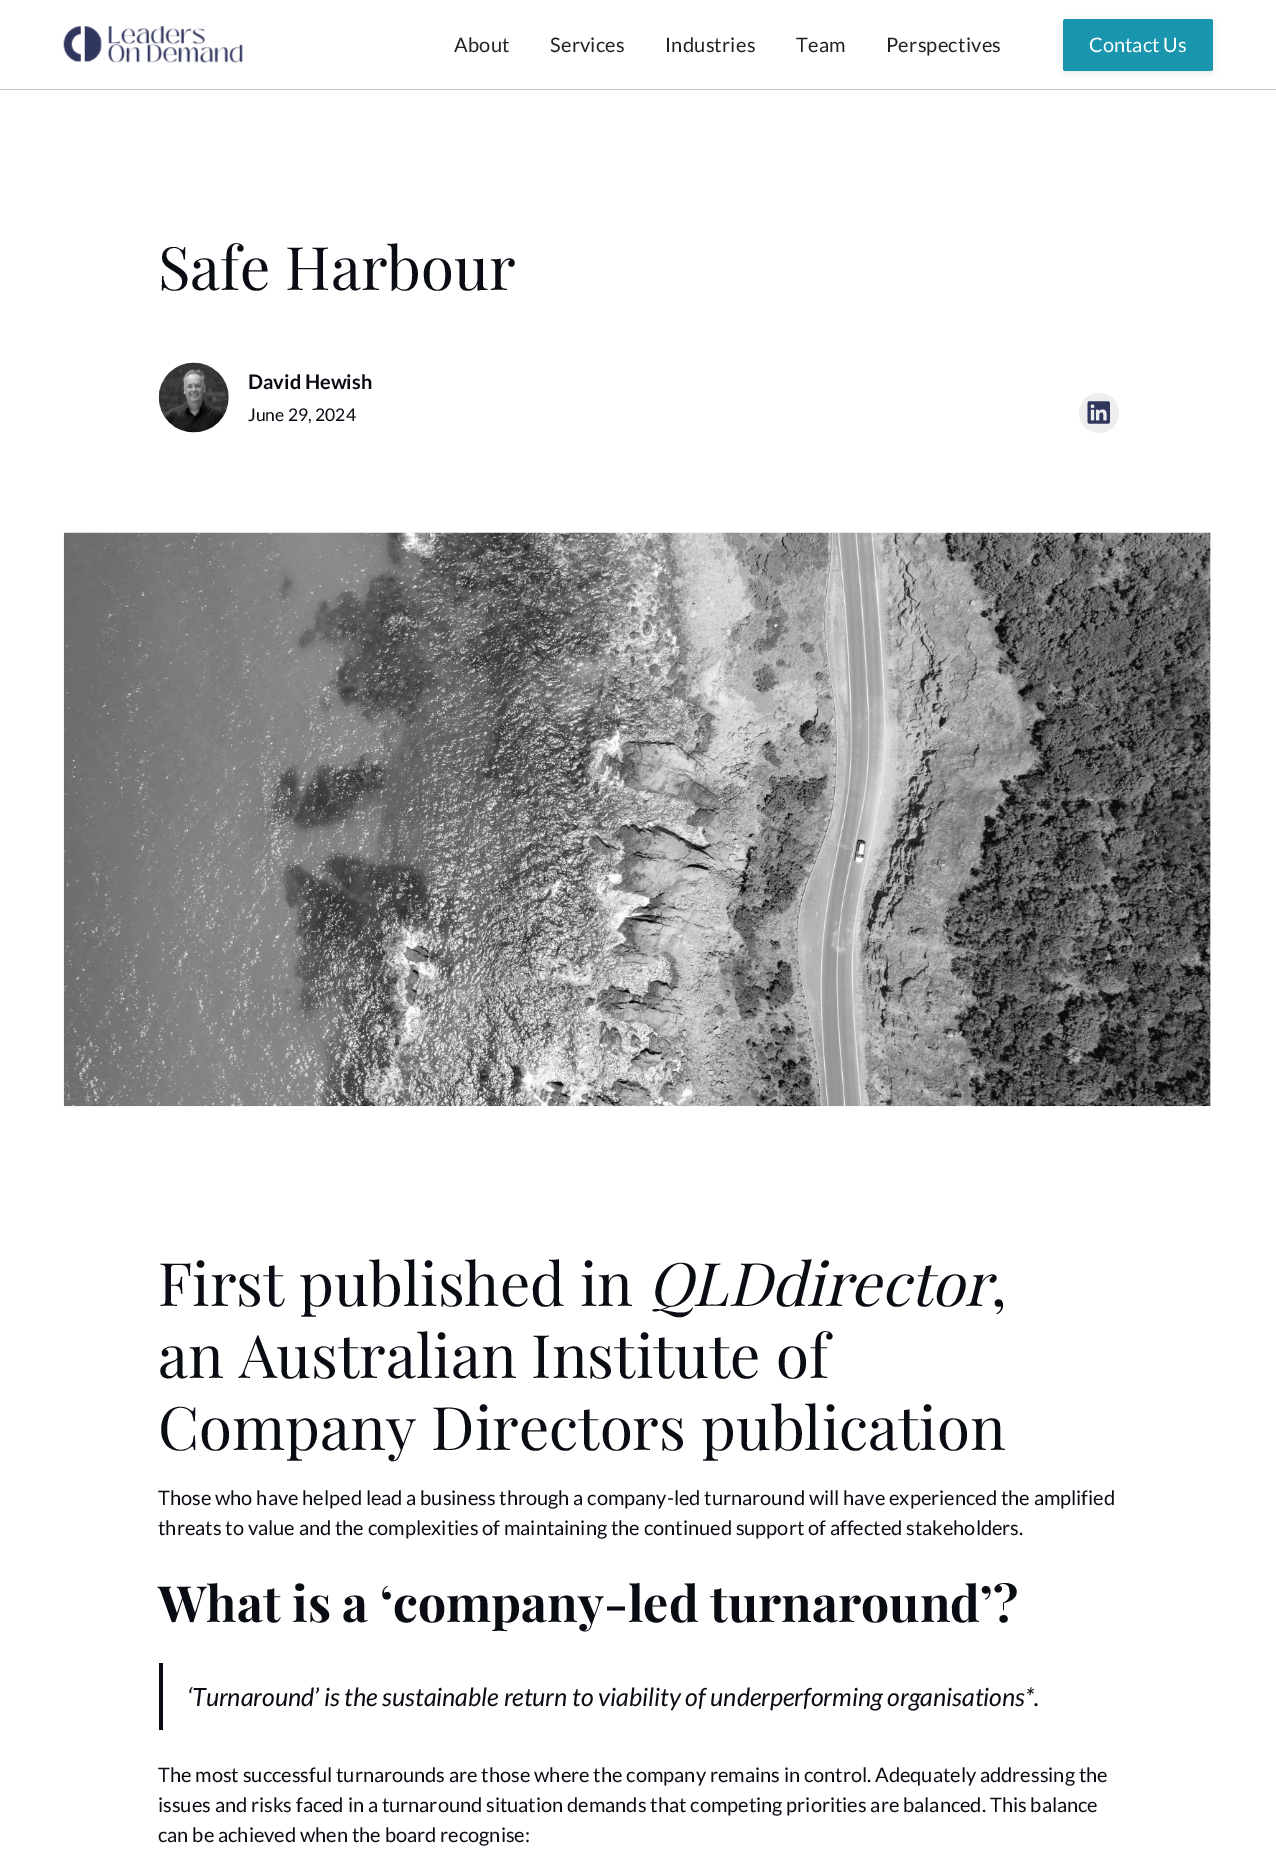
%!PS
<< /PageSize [1276 1866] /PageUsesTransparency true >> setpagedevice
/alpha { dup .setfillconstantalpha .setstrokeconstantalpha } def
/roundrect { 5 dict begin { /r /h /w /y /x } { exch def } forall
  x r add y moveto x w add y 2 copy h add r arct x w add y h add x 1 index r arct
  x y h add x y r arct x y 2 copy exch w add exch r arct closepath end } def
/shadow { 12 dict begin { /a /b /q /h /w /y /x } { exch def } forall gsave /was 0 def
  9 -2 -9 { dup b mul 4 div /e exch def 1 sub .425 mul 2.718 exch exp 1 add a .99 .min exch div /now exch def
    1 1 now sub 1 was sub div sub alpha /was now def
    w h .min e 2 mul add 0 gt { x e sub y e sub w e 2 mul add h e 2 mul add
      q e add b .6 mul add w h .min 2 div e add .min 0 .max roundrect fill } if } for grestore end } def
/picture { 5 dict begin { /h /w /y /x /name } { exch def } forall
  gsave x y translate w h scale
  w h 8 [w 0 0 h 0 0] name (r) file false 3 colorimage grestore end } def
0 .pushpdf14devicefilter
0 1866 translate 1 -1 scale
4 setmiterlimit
1 setgray
0 0 1276 1866 rectfill
0.78 setgray
0 89 1276 1 rectfill
(img1.rgb) 63 26 180 37 picture
/Lato-Regular [20 0 0 -20 0 0] selectfont
0.133 setgray
454 52 moveto 0.25 0 (About) ashow
550 52 moveto 0.25 0 (Services) ashow
665 52 moveto 0.25 0 (Industries) ashow
796 52 moveto 0.25 0 (Team) ashow
886 52 moveto 0.25 0 (Perspectives) ashow
0 setgray
1063 21 150 53 2.5 3 0.07 shadow
0.098 0.584 0.678 setrgbcolor
1063 19 150 52 2.5 roundrect fill
1 setgray
1089 52 moveto (Contact Us) show
/PlayfairDisplay-Regular [60 0 0 -60 0 0] selectfont
0.039 0.047 0.078 setrgbcolor
158 290 moveto (Safe Harbour) show
(img2.rgb) 158 362 71 71 picture
/Lato-Bold [20 0 0 -20 0 0] selectfont
248 389 moveto (David Hewish) show
/Lato-Regular [17.5 0 0 -17.5 0 0] selectfont
248 421 moveto (June 29, 2024) show
0.933 setgray
newpath 1099 413 20 0 360 arc closepath fill
(img3.rgb) 1087 401 23 23 picture
(img4.rgb) 63 532 1148 575 picture
/PlayfairDisplay-Regular [60 0 0 -60 0 0] selectfont
0.039 0.047 0.078 setrgbcolor
158 1306 moveto (First published in) show
/PlayfairDisplay-Italic [60 0 0 -60 0 0] selectfont
648 1306 moveto (QLDdirector) show
/PlayfairDisplay-Regular [60 0 0 -60 0 0] selectfont
991 1306 moveto (,) show
158 1378 moveto (an Australian Institute of) show
158 1450 moveto (Company Directors publication) show
/Lato-Regular [20 0 0 -20 0 0] selectfont
158 1505 moveto (Those who have helped lead a business through a company-led turnaround will have experienced the amplified) show
158 1535 moveto (threats to value and the complexities of maintaining the continued support of affected stakeholders.) show
/PlayfairDisplay-Bold [50 0 0 -50 0 0] selectfont
158 1622 moveto (What is a ‘company-led turnaround’?) show
159 1663 4 67 rectfill
/Lato-Italic [25 0 0 -25 0 0] selectfont
187 1706 moveto (‘Turnaround’ is the sustainable return to viability of underperforming organisations*.) show
/Lato-Regular [20 0 0 -20 0 0] selectfont
158 1782 moveto (The most successful turnarounds are those where the company remains in control. Adequately addressing the) show
158 1812 moveto (issues and risks faced in a turnaround situation demands that competing priorities are balanced. This balance) show
158 1842 moveto (can be achieved when the board recognise:) show
.poppdf14devicefilter showpage
